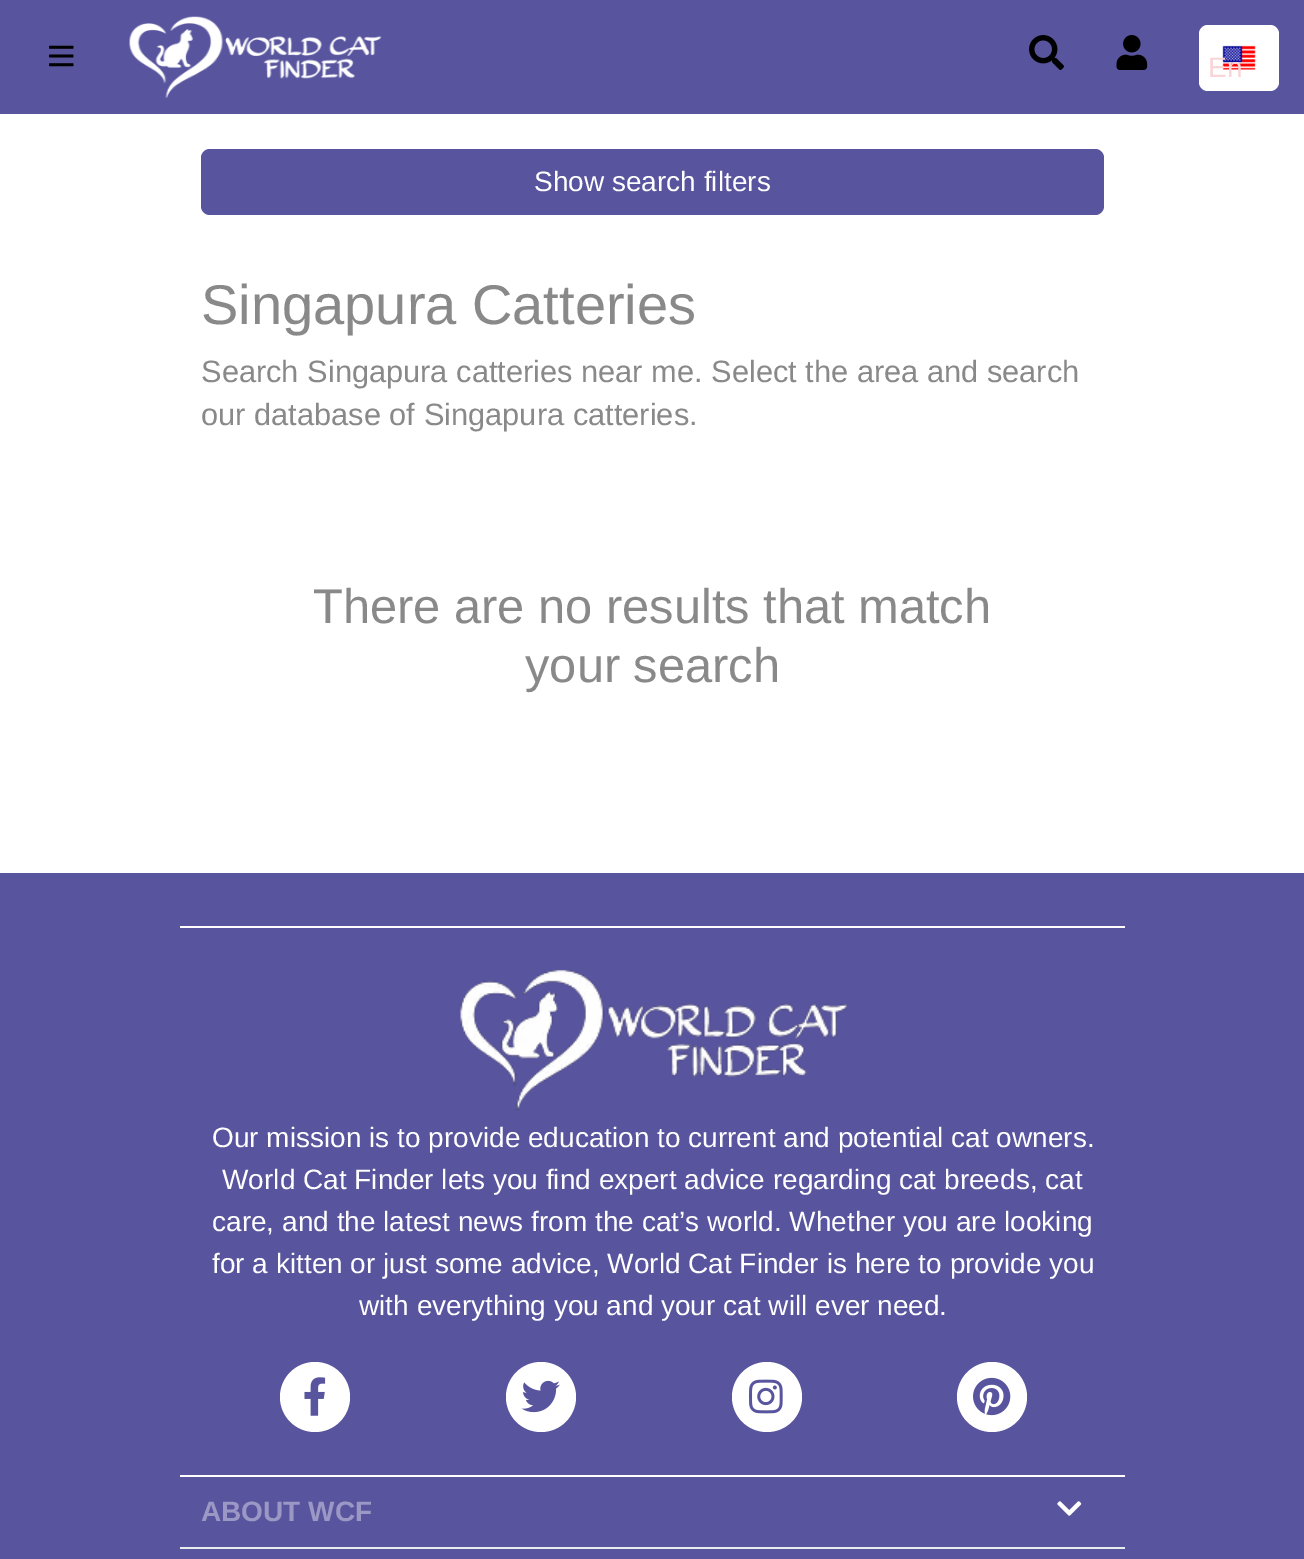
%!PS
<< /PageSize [1304 1559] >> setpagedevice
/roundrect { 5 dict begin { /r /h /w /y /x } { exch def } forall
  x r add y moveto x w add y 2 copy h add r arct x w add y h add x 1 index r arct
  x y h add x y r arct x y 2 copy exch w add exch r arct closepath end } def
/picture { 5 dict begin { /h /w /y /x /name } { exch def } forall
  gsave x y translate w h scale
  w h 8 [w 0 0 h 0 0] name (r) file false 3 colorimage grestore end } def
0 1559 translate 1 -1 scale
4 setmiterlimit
1 setgray
0 0 1304 1559 rectfill
0.345 0.329 0.62 setrgbcolor
0 0 1304 114 rectfill
(img1.rgb) 49 45 25 22 picture
(img2.rgb) 129 16 253 82 picture
(img3.rgb) 1029 35 35 35 picture
(img4.rgb) 1116 35 32 35 picture
1 setgray
1199 25 80 66 9 roundrect fill
(img5.rgb) 1222 45 34 25 picture
3.5 setlinewidth
newpath 1256.5 64 moveto 1263.5 71 lineto 1270.5 64 lineto stroke
/LiberationSans-Regular [28 0 0 -28 0 0] selectfont
0.976 0.835 0.847 setrgbcolor
1208 77 moveto (En) show
0.345 0.329 0.62 setrgbcolor
201 149 903 66 9 roundrect fill
1 setgray
534 191 moveto (Show search filters) show
/LiberationSans-Regular [56 0 0 -56 0 0] selectfont
0.537 setgray
201 324 moveto (Singapura Catteries) show
/LiberationSans-Regular [30.8 0 0 -30.8 0 0] selectfont
201 382 moveto (Search Singapura catteries near me. Select the area and search) show
201 425 moveto (our database of Singapura catteries.) show
/LiberationSans-Regular [48.8 0 0 -48.8 0 0] selectfont
313 623 moveto (There are no results that match) show
525 682 moveto (your search) show
0.345 0.329 0.62 setrgbcolor
0 873 1304 686 rectfill
1 setgray
180 926 945 2 rectfill
180 1475 945 2 rectfill
(img6.rgb) 460 970 387 141 picture
/LiberationSans-Regular [28 0 0 -28 0 0] selectfont
212 1147 moveto (Our mission is to provide education to current and potential cat owners.) show
222 1189 moveto (World Cat Finder lets you find expert advice regarding cat breeds, cat) show
212 1231 moveto (care, and the latest news from the cat’s world. Whether you are looking) show
212 1273 moveto (for a kitten or just some advice, World Cat Finder is here to provide you) show
359 1315 moveto (with everything you and your cat will ever need.) show
newpath 315 1397 35 0 360 arc closepath fill
(img7.rgb) 304 1377 22 39 picture
newpath 541 1397 35 0 360 arc closepath fill
(img8.rgb) 521 1380 39 33 picture
newpath 767 1397 35 0 360 arc closepath fill
(img9.rgb) 749 1379 34 35 picture
newpath 992 1397 35 0 360 arc closepath fill
(img10.rgb) 973 1377 38 39 picture
0.914 0.925 0.937 setrgbcolor
180 1547 945 2 rectfill
/LiberationSans-Bold [28 0 0 -28 0 0] selectfont
0.608 0.596 0.773 setrgbcolor
201 1521 moveto (ABOUT WCF) show
(img11.rgb) 1057 1501 25 15 picture
showpage
